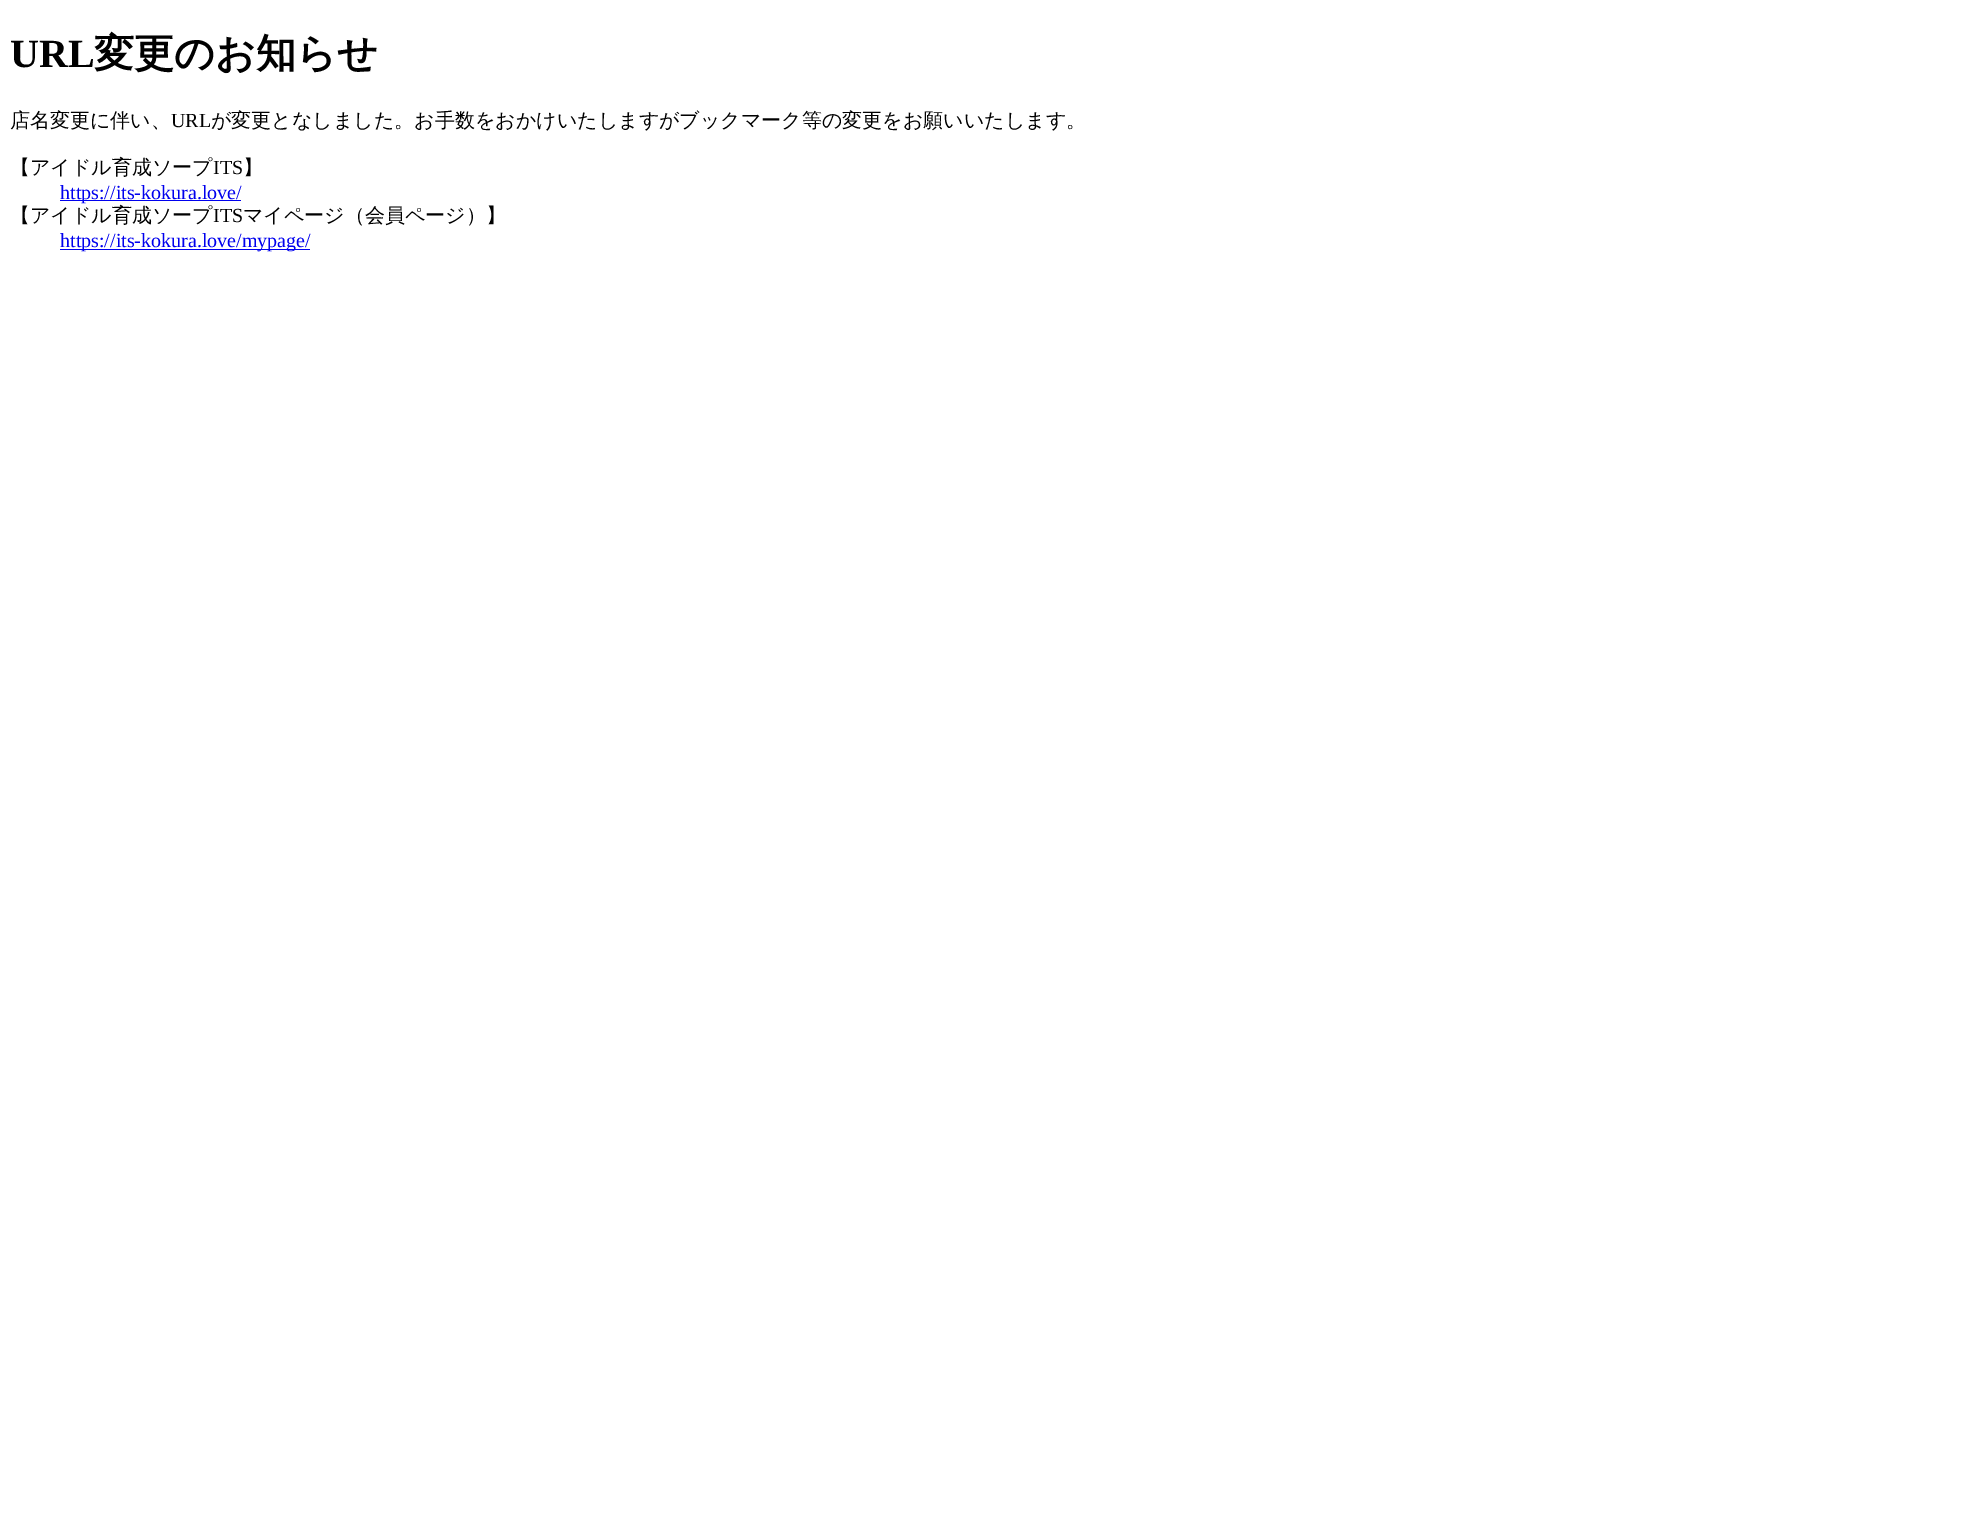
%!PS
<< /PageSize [1964 1535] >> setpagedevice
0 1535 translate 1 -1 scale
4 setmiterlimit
1 setgray
0 0 1964 1535 rectfill
/LiberationSerif-Bold [40 0 0 -40 0 0] selectfont
0 setgray
10 67 moveto (URL) show
/WenQuanYiZenHei-Bold [40 0 0 -40 0 0] selectfont
94 67 moveto (変更のお知らせ) show
/WenQuanYiZenHei-Medium [20 0 0 -20 0 0] selectfont
10 127 moveto (店名変更に伴い、) show
/LiberationSerif-Regular [20 0 0 -20 0 0] selectfont
171 127 moveto (URL) show
/WenQuanYiZenHei-Medium [20 0 0 -20 0 0] selectfont
211 127 moveto (が変更となしました。お手数をおかけいたしますがブックマーク等の変更をお願いいたします。) show
10 174 moveto (【アイドル育成ソープ) show
/LiberationSerif-Regular [20 0 0 -20 0 0] selectfont
213 174 moveto (ITS) show
/WenQuanYiZenHei-Medium [20 0 0 -20 0 0] selectfont
243 174 moveto (】) show
0 0 0.933 setrgbcolor
60 200 181 1 rectfill
/LiberationSerif-Regular [20 0 0 -20 0 0] selectfont
60 199 moveto (https://its-kokura.love/) show
/WenQuanYiZenHei-Medium [20 0 0 -20 0 0] selectfont
0 setgray
10 222 moveto (【アイドル育成ソープ) show
/LiberationSerif-Regular [20 0 0 -20 0 0] selectfont
213 222 moveto (ITS) show
/WenQuanYiZenHei-Medium [20 0 0 -20 0 0] selectfont
243 222 moveto (マイページ（会員ページ）】) show
0 0 0.933 setrgbcolor
60 249 250 1 rectfill
/LiberationSerif-Regular [20 0 0 -20 0 0] selectfont
60 247 moveto (https://its-kokura.love/mypage/) show
showpage
